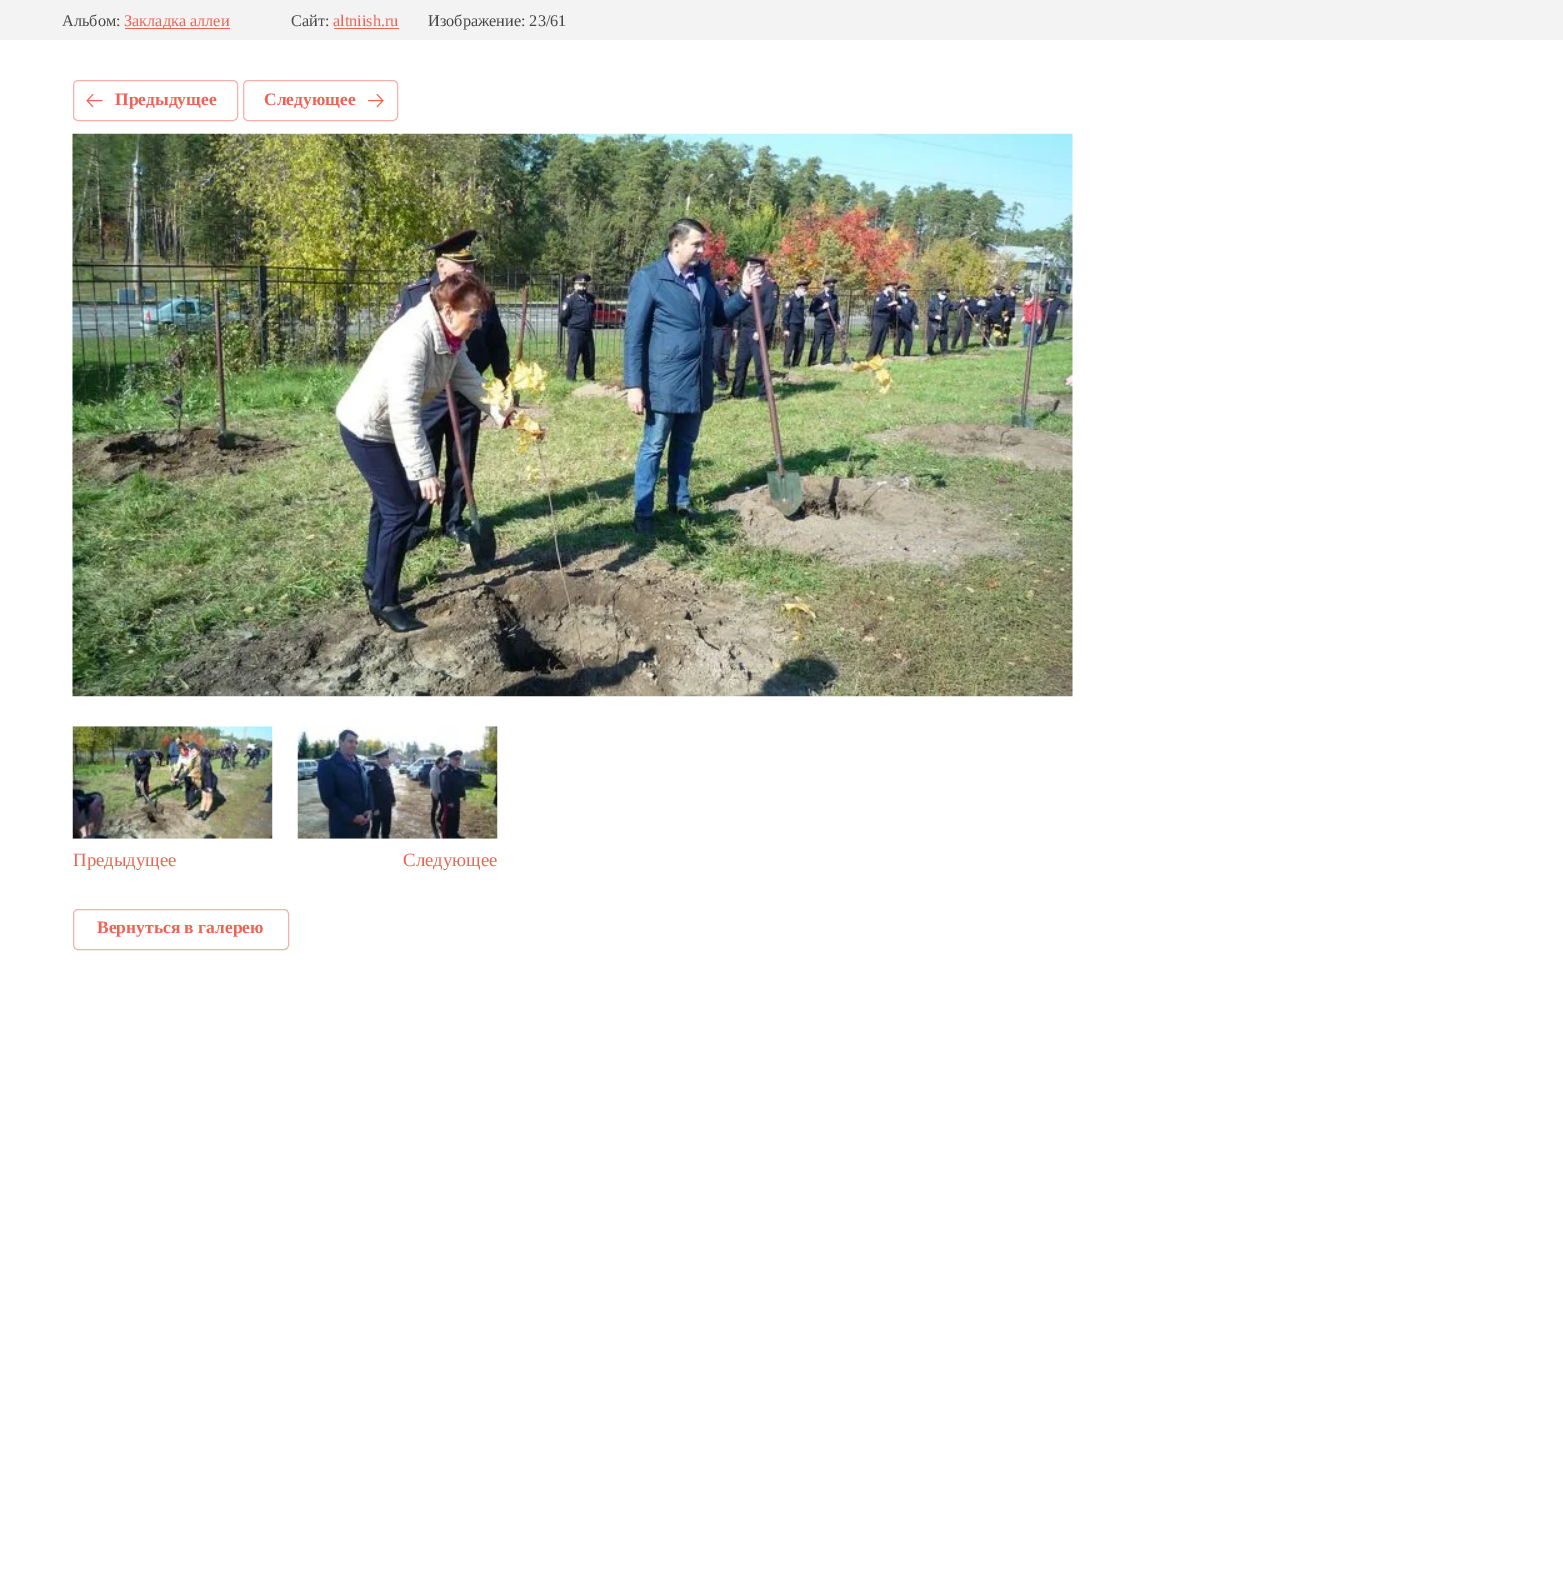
%!PS
<< /PageSize [1563 1592] >> setpagedevice
/roundrect { 5 dict begin { /r /h /w /y /x } { exch def } forall
  x r add y moveto x w add y 2 copy h add r arct x w add y h add x 1 index r arct
  x y h add x y r arct x y 2 copy exch w add exch r arct closepath end } def
/picture { 5 dict begin { /h /w /y /x /name } { exch def } forall
  gsave x y translate w h scale
  w h 8 [w 0 0 h 0 0] name (r) file false 3 colorimage grestore end } def
0 1592 translate 1 -1 scale
4 setmiterlimit
1 setgray
0 0 1563 1592 rectfill
0.953 setgray
0 0 1563 40 rectfill
/LiberationSerif-Regular [16.25 0 0 -16.25 0 0] selectfont
0.282 setgray
62 26 moveto (Альбом:) show
0.941 0.388 0.329 setrgbcolor
125 28 105 1 rectfill
124 26 moveto (Закладка аллеи) show
0.282 setgray
291 26 moveto (Сайт:) show
0.941 0.388 0.329 setrgbcolor
333 26 moveto (altniish.ru) show
334 28 65 1 rectfill
0.282 setgray
428 26 moveto (Изображение: 23/61) show
0.973 0.694 0.667 setrgbcolor
73.5 80.5 164 40 4.5 roundrect stroke
(img1.rgb) 86 94 17 14 picture
/LiberationSerif-Bold [17.5 0 0 -17.5 0 0] selectfont
0.941 0.388 0.329 setrgbcolor
115 105 moveto (Предыдущее) show
0.973 0.694 0.667 setrgbcolor
243.5 80.5 154 40 4.5 roundrect stroke
0.941 0.388 0.329 setrgbcolor
264 105 moveto (Следующее) show
(img2.rgb) 368 94 16 14 picture
(img3.rgb) 72 133 1001 564 picture
(img4.rgb) 72 726 201 113 picture
/LiberationSerif-Regular [18.75 0 0 -18.75 0 0] selectfont
73 866 moveto (Предыдущее) show
(img5.rgb) 297 726 201 113 picture
403 866 moveto (Следующее) show
0.973 0.694 0.667 setrgbcolor
73.5 909.5 215 40 4.5 roundrect stroke
/LiberationSerif-Bold [17.5 0 0 -17.5 0 0] selectfont
0.941 0.388 0.329 setrgbcolor
97 933 moveto (Вернуться в галерею) show
showpage
